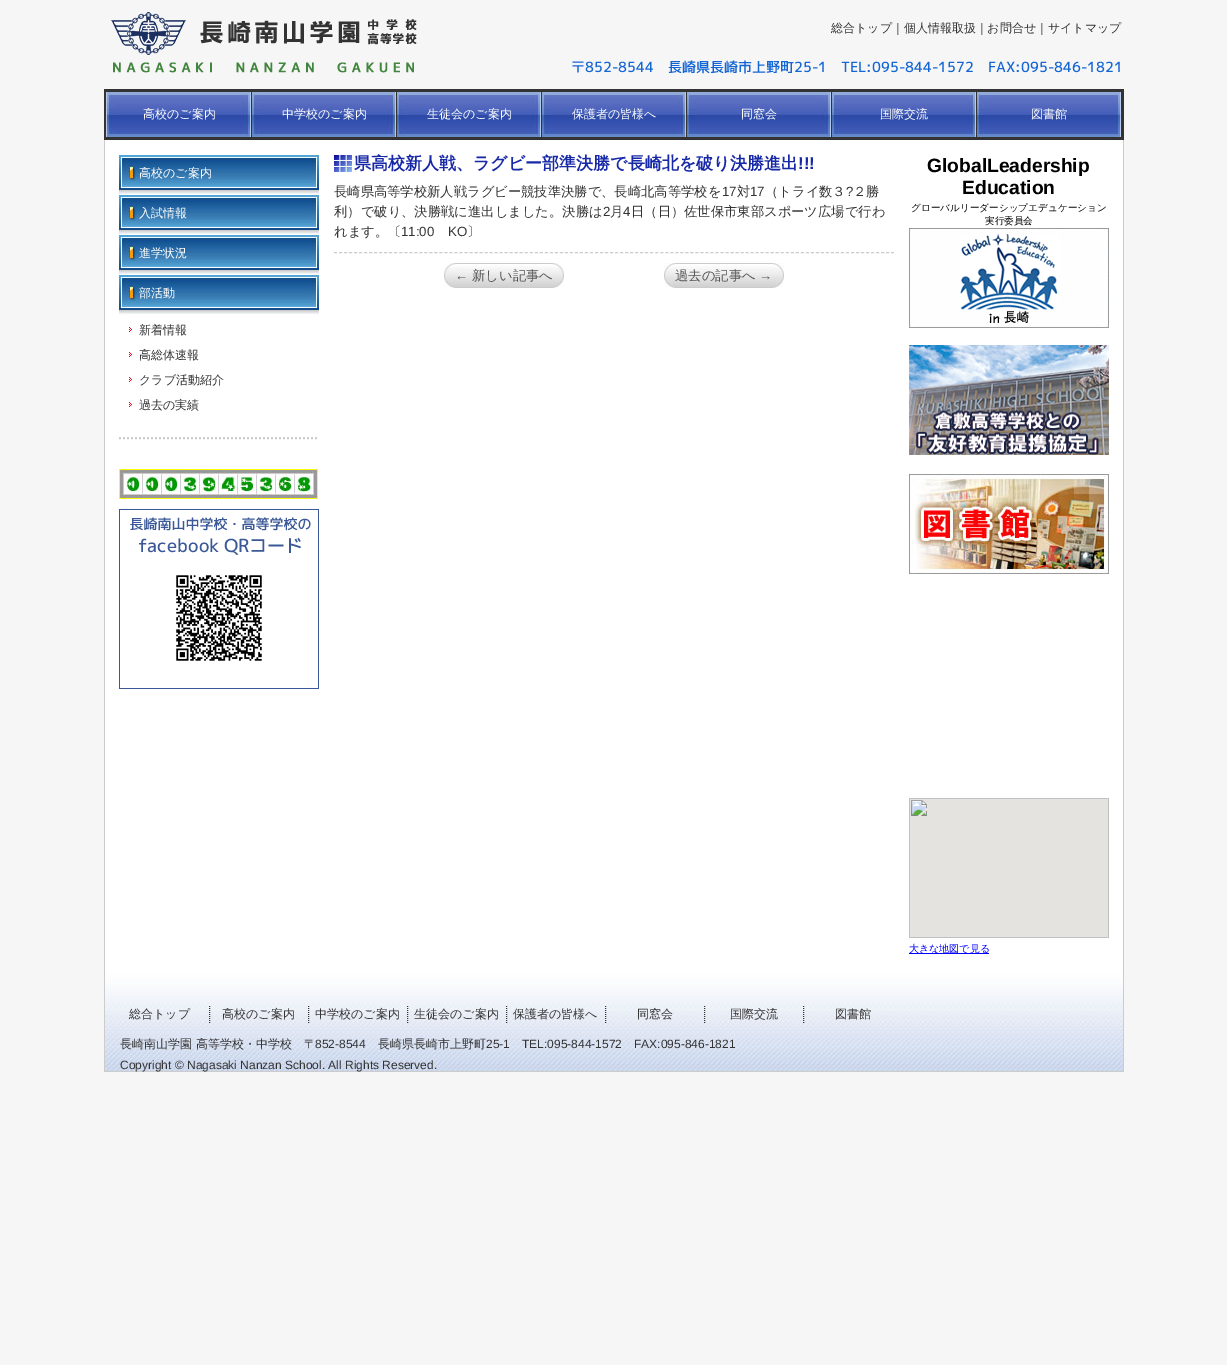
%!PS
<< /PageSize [1227 1365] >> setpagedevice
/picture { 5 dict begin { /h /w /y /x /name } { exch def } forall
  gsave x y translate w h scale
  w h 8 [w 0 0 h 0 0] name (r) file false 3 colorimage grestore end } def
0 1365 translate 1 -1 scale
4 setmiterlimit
0.965 setgray
0 0 1227 1365 rectfill
0.8 setgray
104 1071 1020 1 rectfill
(img1.rgb) 111 12 306 61 picture
/WenQuanYiZenHei-Medium [12 0 0 -12 0 0] selectfont
0.2 setgray
831 32 moveto (総合トップ｜個人情報取扱｜お問合せ｜サイトマップ) show
(img2.rgb) 572 60 548 14 picture
104 89 1020 51 rectfill
0.745 0.784 0.906 setrgbcolor
106 92 1 45 rectfill
(img3.rgb) 107 92 144 45 picture
1 setgray
143 118 moveto (高校のご案内) show
(img3.rgb) 252 92 144 45 picture
282 118 moveto (中学校のご案内) show
(img3.rgb) 397 92 144 45 picture
427 118 moveto (生徒会のご案内) show
(img3.rgb) 542 92 144 45 picture
572 118 moveto (保護者の皆様へ) show
(img3.rgb) 687 92 144 45 picture
741 118 moveto (同窓会) show
(img3.rgb) 832 92 144 45 picture
880 118 moveto (国際交流) show
(img3.rgb) 977 92 144 45 picture
1031 118 moveto (図書館) show
0.8 setgray
1123 140 1 931 rectfill
104 140 1 931 rectfill
1 setgray
105 140 1018 831 rectfill
0.8 setgray
2 setlinewidth
[2 2] 0 setdash
newpath 119 438 moveto 319 438 lineto stroke
(img4.rgb) 119 155 200 40 picture
1 setgray
139 177 moveto (高校のご案内) show
(img4.rgb) 119 195 200 40 picture
139 217 moveto (入試情報) show
(img4.rgb) 119 235 200 40 picture
139 257 moveto (進学状況) show
(img4.rgb) 119 275 200 40 picture
139 297 moveto (部活動) show
(img5.rgb) 129 327 3 5 picture
0.2 setgray
139 334 moveto (新着情報) show
(img5.rgb) 129 352 3 5 picture
139 359 moveto (高総体速報) show
(img5.rgb) 129 377 3 5 picture
139 384 moveto (クラブ活動紹介) show
(img5.rgb) 129 402 3 5 picture
139 409 moveto (過去の実績) show
(img6.rgb) 119 469 199 30 picture
(img7.rgb) 124 474 18 20 picture
(img7.rgb) 143 474 18 20 picture
(img7.rgb) 162 474 18 20 picture
(img8.rgb) 181 474 18 20 picture
(img9.rgb) 200 474 18 20 picture
(img10.rgb) 219 474 18 20 picture
(img11.rgb) 238 474 18 20 picture
(img8.rgb) 257 474 18 20 picture
(img12.rgb) 276 474 18 20 picture
(img13.rgb) 295 474 18 20 picture
(img14.rgb) 119 509 200 180 picture
(img15.rgb) 334 155 18 17 picture
/WenQuanYiZenHei-Bold [17 0 0 -17 0 0] selectfont
0.09 0.161 0.655 setrgbcolor
354 169 moveto (県高校新人戦、ラグビー部準決勝で長崎北を破り決勝進出) show
/LiberationSans-Bold [17 0 0 -17 0 0] selectfont
798 169 moveto (!!!) show
/WenQuanYiZenHei-Medium [13.3 0 0 -13.3 0 0] selectfont
0.2 setgray
334 196 moveto (長崎県高等学校新人戦ラグビー競技準決勝で、長崎北高等学校を) show
/LiberationSans-Regular [13.3 0 0 -13.3 0 0] selectfont
722 196 moveto (17) show
/WenQuanYiZenHei-Medium [13.3 0 0 -13.3 0 0] selectfont
737 196 moveto (対) show
/LiberationSans-Regular [13.3 0 0 -13.3 0 0] selectfont
750 196 moveto (17) show
/WenQuanYiZenHei-Medium [13.3 0 0 -13.3 0 0] selectfont
765 196 moveto (（トライ数３) show
/LiberationSans-Regular [13.3 0 0 -13.3 0 0] selectfont
846 196 moveto (?) show
/WenQuanYiZenHei-Medium [13.3 0 0 -13.3 0 0] selectfont
853 196 moveto (２勝) show
334 216 moveto (利）で破り、決勝戦に進出しました。決勝は) show
/LiberationSans-Regular [13.3 0 0 -13.3 0 0] selectfont
603 216 moveto (2) show
/WenQuanYiZenHei-Medium [13.3 0 0 -13.3 0 0] selectfont
610 216 moveto (月) show
/LiberationSans-Regular [13.3 0 0 -13.3 0 0] selectfont
623 216 moveto (4) show
/WenQuanYiZenHei-Medium [13.3 0 0 -13.3 0 0] selectfont
631 216 moveto (日（日）佐世保市東部スポーツ広場で行わ) show
334 236 moveto (れます。〔) show
/LiberationSans-Regular [13.3 0 0 -13.3 0 0] selectfont
401 236 moveto (11:00) show
448 236 moveto (KO) show
/WenQuanYiZenHei-Medium [13.3 0 0 -13.3 0 0] selectfont
467 236 moveto (〕) show
0.8 setgray
1 setlinewidth
[3 2.02] 0 setdash
newpath 334 252.5 moveto 894 252.5 lineto stroke
(img16.rgb) 444 263 120 25 picture
/LiberationSans-Regular [13.3 0 0 -13.3 0 0] selectfont
0.333 setgray
455 280 moveto (←) show
/WenQuanYiZenHei-Medium [13.3 0 0 -13.3 0 0] selectfont
472 280 moveto (新しい記事へ) show
(img16.rgb) 664 263 120 25 picture
675 280 moveto (過去の記事へ) show
/LiberationSans-Regular [13.3 0 0 -13.3 0 0] selectfont
759 280 moveto (→) show
/LiberationSans-Bold [19.25 0 0 -19.25 0 0] selectfont
0 setgray
927 172 moveto (GlobalLeadership) show
962 194 moveto (Education) show
/WenQuanYiZenHei-Medium [9.6 0 0 -9.6 0 0] selectfont
911 211 moveto (グローバルリーダーシップエデュケーション) show
985 224 moveto (実行委員会) show
(img17.rgb) 909 228 200 100 picture
(img18.rgb) 909 345 200 110 picture
(img19.rgb) 909 474 200 100 picture
(img20.rgb) 909 798 200 140 picture
0 0 1 setrgbcolor
909 953 80 1 rectfill
/WenQuanYiZenHei-Medium [10 0 0 -10 0 0] selectfont
909 952 moveto (大きな地図で見る) show
(img21.rgb) 105 971 1018 100 picture
/WenQuanYiZenHei-Medium [12 0 0 -12 0 0] selectfont
0.2 setgray
129 1018 moveto (総合トップ) show
[1 1] 0 setdash
newpath 209.5 1006 moveto 209.5 1023 lineto stroke
222 1018 moveto (高校のご案内) show
newpath 308.5 1006 moveto 308.5 1023 lineto stroke
315 1018 moveto (中学校のご案内) show
newpath 407.5 1006 moveto 407.5 1023 lineto stroke
414 1018 moveto (生徒会のご案内) show
newpath 506.5 1006 moveto 506.5 1023 lineto stroke
513 1018 moveto (保護者の皆様へ) show
newpath 605.5 1006 moveto 605.5 1023 lineto stroke
637 1018 moveto (同窓会) show
newpath 704.5 1006 moveto 704.5 1023 lineto stroke
730 1018 moveto (国際交流) show
newpath 803.5 1006 moveto 803.5 1023 lineto stroke
835 1018 moveto (図書館) show
120 1048 moveto (長崎南山学園 高等学校・中学校　〒) show
/LiberationSans-Regular [12 0 0 -12 0 0] selectfont
315 1048 moveto (852-8544) show
/WenQuanYiZenHei-Medium [12 0 0 -12 0 0] selectfont
378 1048 moveto (長崎県長崎市上野町) show
/LiberationSans-Regular [12 0 0 -12 0 0] selectfont
486 1048 moveto (25-1) show
522 1048 moveto (TEL:095-844-1572) show
634 1048 moveto (FAX:095-846-1821) show
120 1069 moveto (Copyright © Nagasaki Nanzan School. All Rights Reserved.) show
showpage
